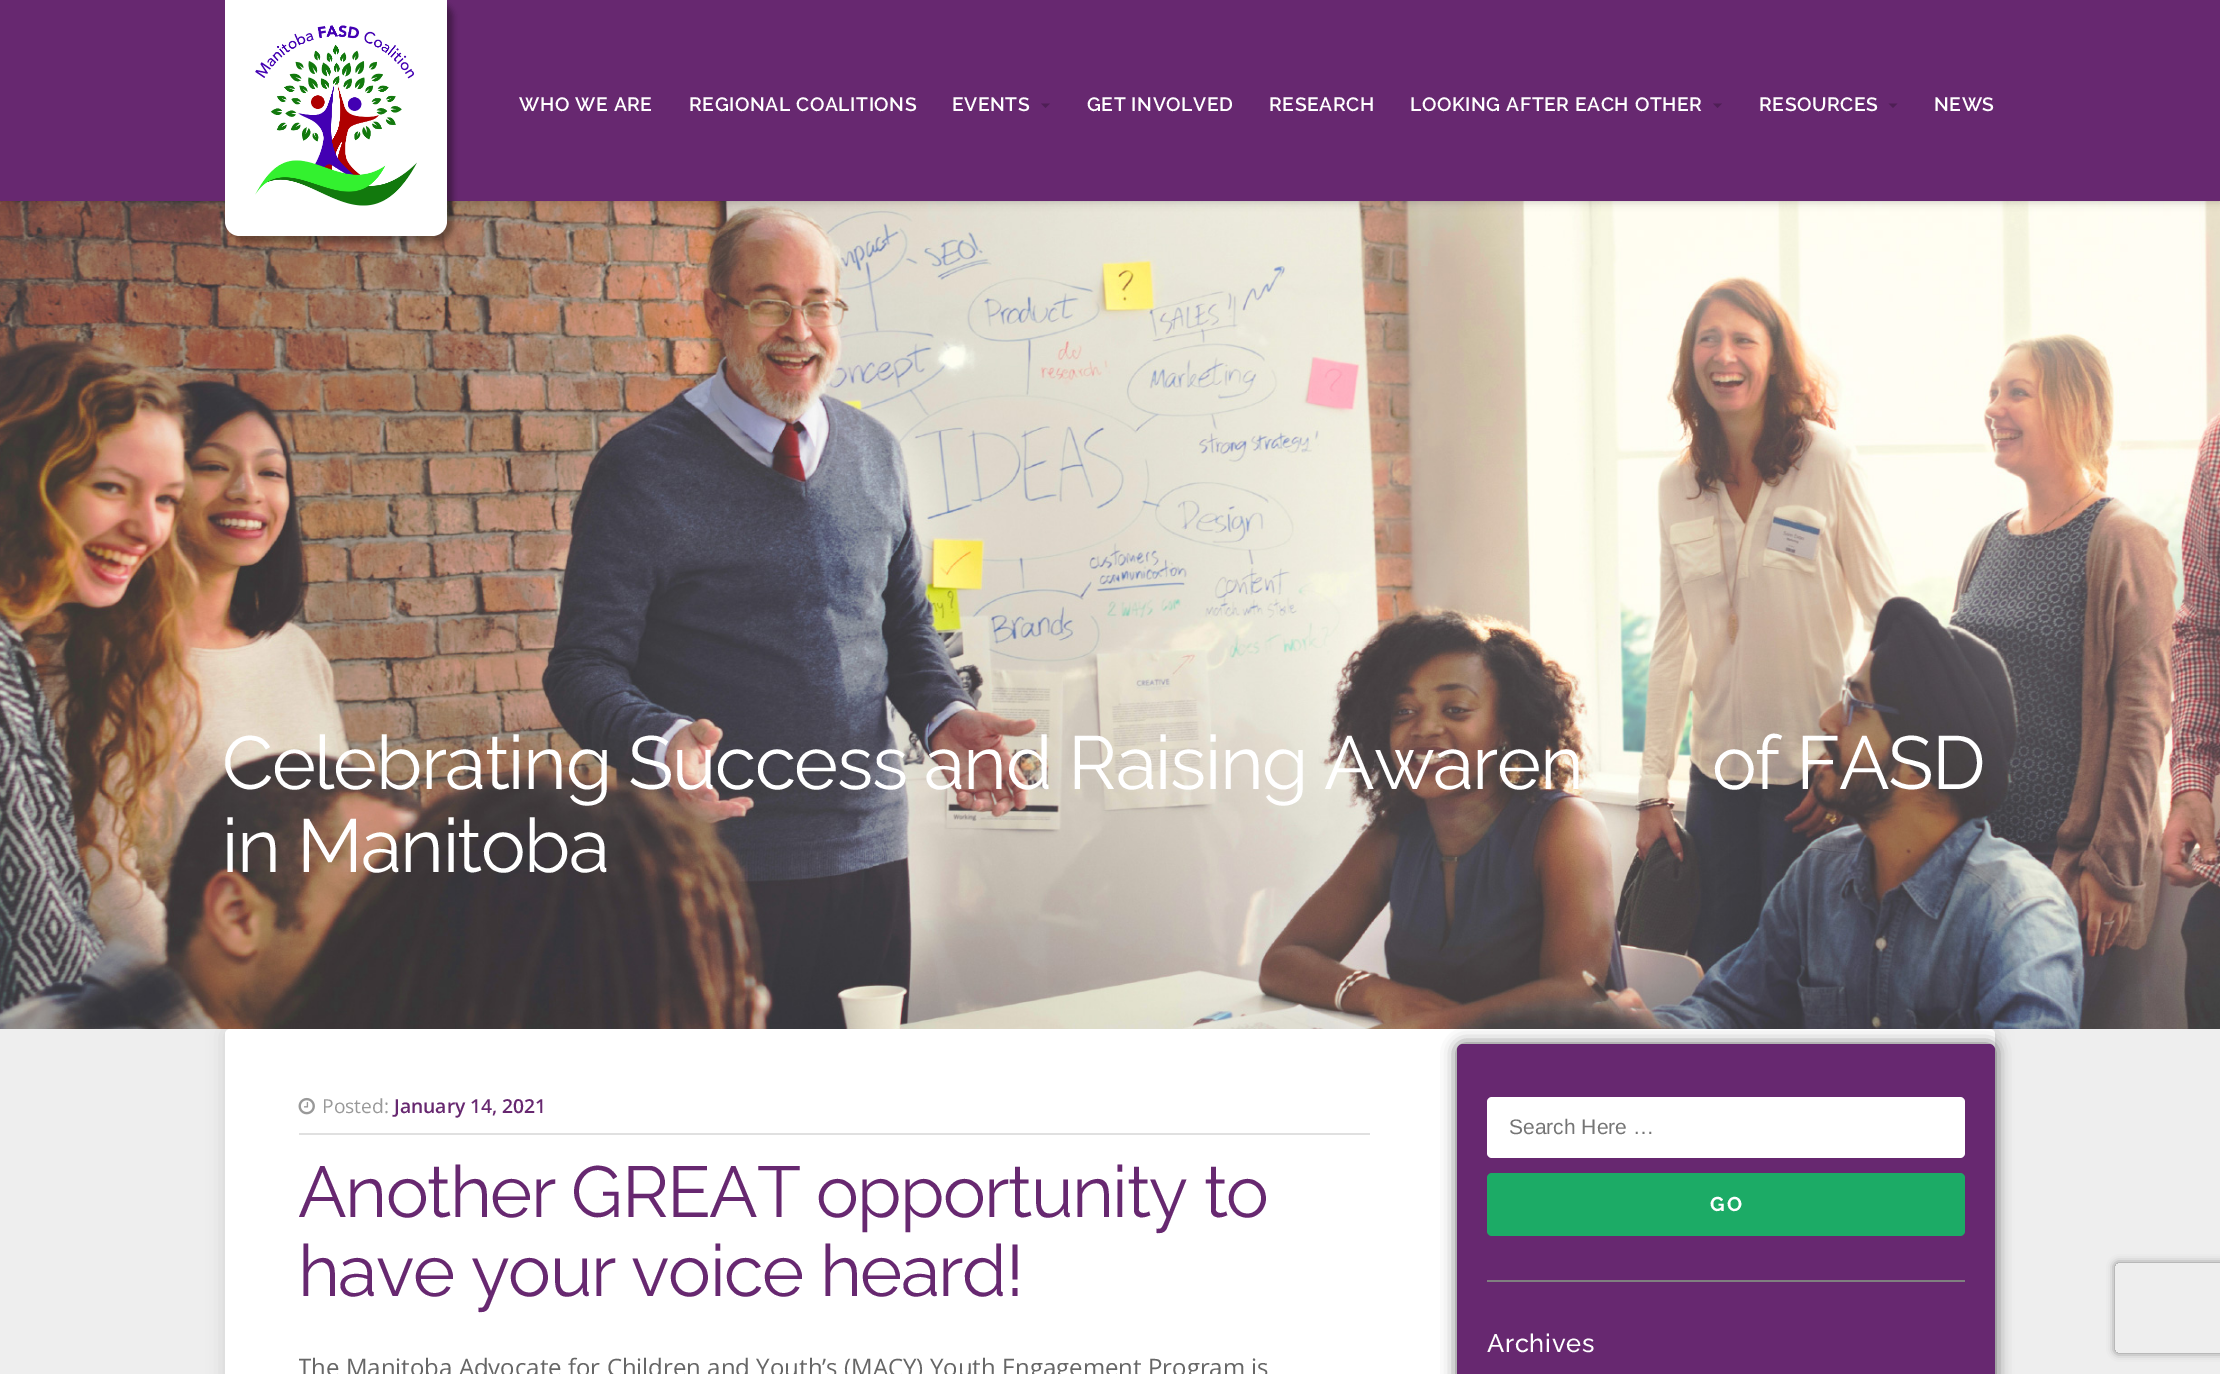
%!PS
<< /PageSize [2220 1374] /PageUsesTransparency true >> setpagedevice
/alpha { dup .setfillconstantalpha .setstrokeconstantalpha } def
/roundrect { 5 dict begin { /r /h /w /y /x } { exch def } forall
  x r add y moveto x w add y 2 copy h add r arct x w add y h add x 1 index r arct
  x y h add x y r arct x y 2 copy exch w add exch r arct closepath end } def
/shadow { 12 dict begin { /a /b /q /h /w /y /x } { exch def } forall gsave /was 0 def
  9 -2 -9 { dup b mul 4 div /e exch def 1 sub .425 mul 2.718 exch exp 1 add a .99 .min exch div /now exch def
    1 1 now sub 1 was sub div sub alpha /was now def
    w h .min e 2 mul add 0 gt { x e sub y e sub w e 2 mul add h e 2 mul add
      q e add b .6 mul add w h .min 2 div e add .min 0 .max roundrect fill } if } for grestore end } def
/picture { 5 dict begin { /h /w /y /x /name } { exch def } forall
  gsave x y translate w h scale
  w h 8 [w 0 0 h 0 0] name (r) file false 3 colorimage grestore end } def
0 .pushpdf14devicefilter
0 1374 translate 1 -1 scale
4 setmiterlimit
0.933 setgray
0 0 2220 1374 rectfill
0 setgray
225 1029 1770 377 5 9 0.12 shadow
1 setgray
225 1029 1770 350 5 roundrect fill
0.392 setgray
1457 1044 538 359 6 7.5 1 shadow
(img2.rgb) 0 201 2220 828 picture
0 setgray
0 0 2220 201 0 4.5 0.24 shadow
0.404 0.157 0.439 setrgbcolor
0 0 2220 201 rectfill
0 setgray
231 2 222 240 15 3 0.35 shadow
1 setgray
newpath 225 -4 moveto 447 -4 lineto 447 221 lineto 447 229.5 440.5 236 432 236 curveto 240 236 lineto 231.5 236 225 229.5 225 221 curveto closepath fill
(img1.rgb) 255 25 162 181 picture
/Raleway-SemiBold [19.25 0 0 -19.25 0 0] selectfont
519 111 moveto 0.6 0 (WHO WE ARE) ashow
689 111 moveto 0.6 0 (REGIONAL COALITIONS) ashow
952 111 moveto 0.6 0 (EVENTS) ashow
0.306 0.118 0.333 setrgbcolor
newpath 1041 103.5 moveto 1050 103.5 lineto 1045.5 108 lineto closepath fill
1 setgray
1087 111 moveto 0.6 0 (GET INVOLVED) ashow
1269 111 moveto 0.6 0 (RESEARCH) ashow
1410 111 moveto 0.6 0 (LOOKING AFTER EACH OTHER) ashow
0.306 0.118 0.333 setrgbcolor
newpath 1713 103.5 moveto 1722 103.5 lineto 1717.5 108 lineto closepath fill
1 setgray
1759 111 moveto 0.6 0 (RESOURCES) ashow
0.306 0.118 0.333 setrgbcolor
newpath 1888.5 103.5 moveto 1897.5 103.5 lineto 1893 108 lineto closepath fill
1 setgray
1934 111 moveto 0.6 0 (NEWS) ashow
/Raleway-Regular [75 0 0 -75 0 0] selectfont
222 789 moveto -1.5 0 (Celebrating Success and Raising Awaren) ashow
1712 789 moveto -1.5 0 (of FASD) ashow
222 872 moveto -1.5 0 (in Manitoba) ashow
0.878 setgray
299 1133 1071 2 rectfill
(img3.rgb) 298 1097 17 18 picture
/OpenSans-Regular [19.25 0 0 -19.25 0 0] selectfont
0.6 setgray
322 1113 moveto (Posted:) show
/OpenSans-SemiBold [19.25 0 0 -19.25 0 0] selectfont
0.404 0.157 0.439 setrgbcolor
394 1113 moveto (January 14, 2021) show
/Raleway-Regular [72 0 0 -72 0 0] selectfont
298 1217 moveto -1.5 0 (Another GREAT opportunity to) ashow
298 1296 moveto -1.5 0 (have your voice heard!) ashow
gsave
299 1329 1071 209 rectclip
/OpenSans-Regular [24 0 0 -24 0 0] selectfont
0.4 setgray
298 1376 moveto (The Manitoba Advocate for Children and Youth’s \(MACY\) Youth Engagement Program is) show
grestore
1457 1044 538 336 6 roundrect fill
1 setgray
1487 1097 478 61 5 roundrect fill
/LiberationSans-Regular [21 0 0 -21 0 0] selectfont
0.459 setgray
1509 1134 moveto (Search Here …) show
0.11 0.671 0.4 setrgbcolor
1487 1173 478 63 5 roundrect fill
/Raleway-Bold [20 0 0 -20 0 0] selectfont
1 setgray
1710 1211 moveto 2 0 (GO) ashow
0.502 setgray
1487 1280 478 2 rectfill
/Raleway-Medium [25.5 0 0 -25.5 0 0] selectfont
1 setgray
1487 1352 moveto 0.6 0 (Archives) ashow
gsave
newpath 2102 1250 moveto 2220 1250 lineto 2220 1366 lineto 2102 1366 lineto closepath 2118 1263 moveto 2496 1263 lineto 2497.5 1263 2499 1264.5 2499 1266 curveto 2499 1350 lineto 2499 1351.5 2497.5 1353 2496 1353 curveto 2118 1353 lineto 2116.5 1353 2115 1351.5 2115 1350 curveto 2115 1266 lineto 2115 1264.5 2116.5 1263 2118 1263 curveto closepath eoclip newpath
0.502 setgray
2115 1263 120 90 3 4 1 shadow
grestore
.poppdf14devicefilter showpage
